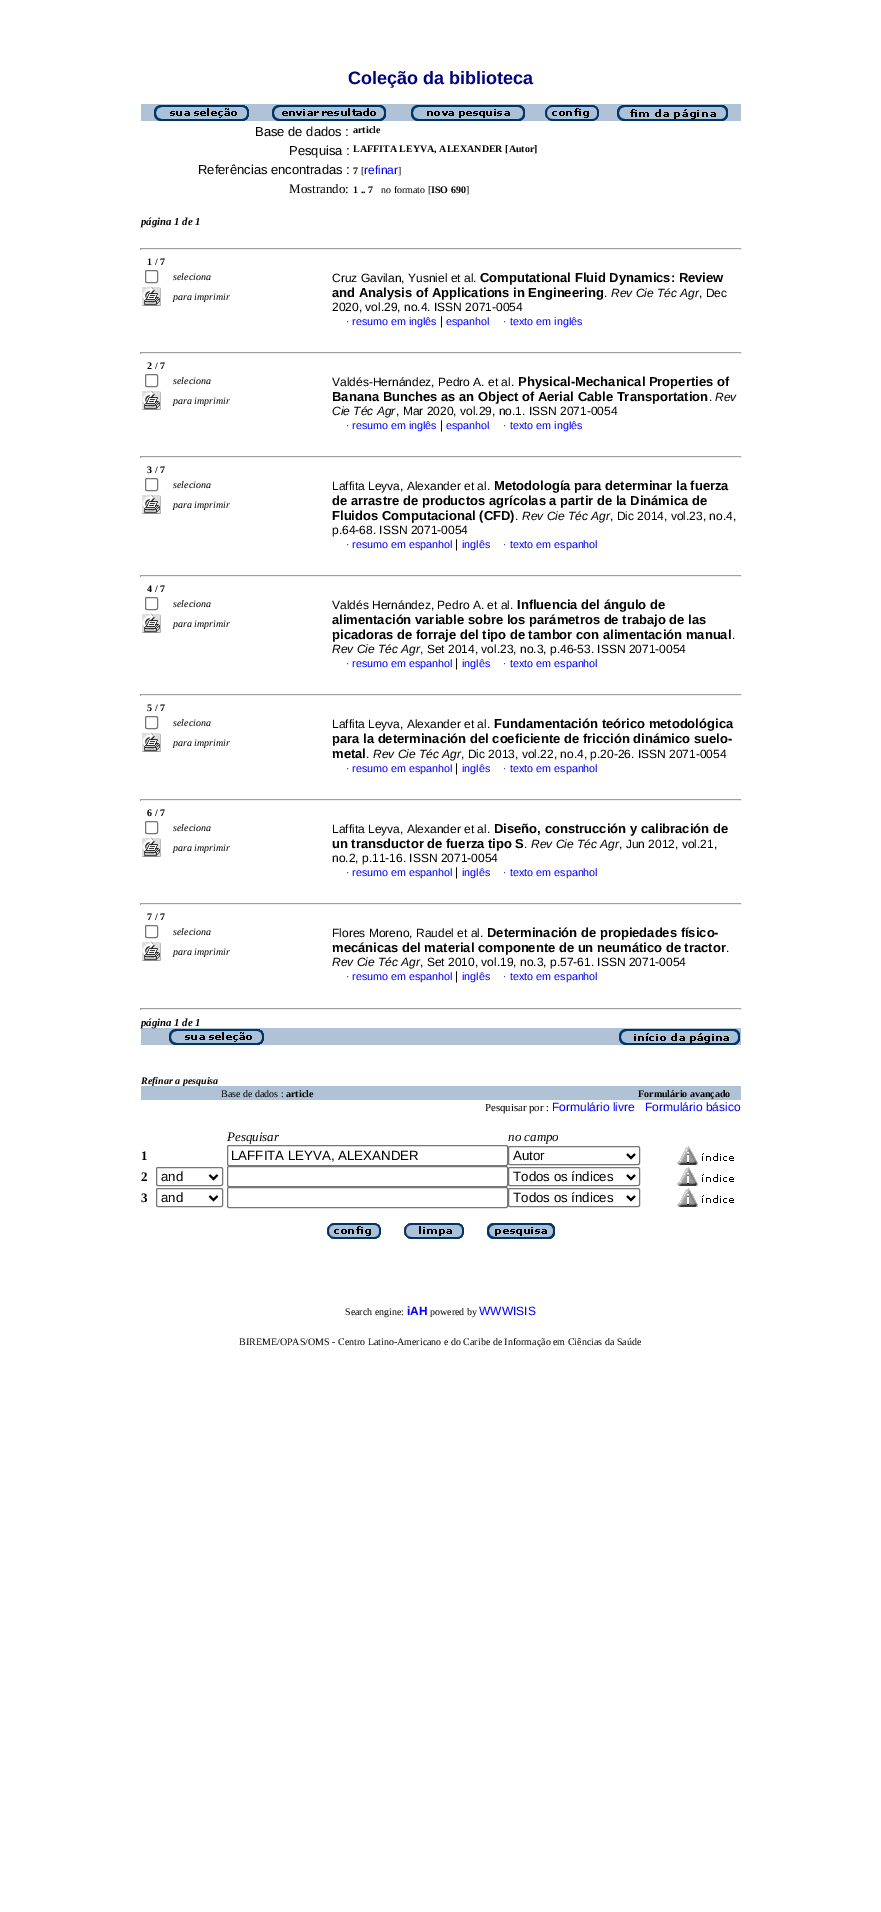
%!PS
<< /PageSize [881 1912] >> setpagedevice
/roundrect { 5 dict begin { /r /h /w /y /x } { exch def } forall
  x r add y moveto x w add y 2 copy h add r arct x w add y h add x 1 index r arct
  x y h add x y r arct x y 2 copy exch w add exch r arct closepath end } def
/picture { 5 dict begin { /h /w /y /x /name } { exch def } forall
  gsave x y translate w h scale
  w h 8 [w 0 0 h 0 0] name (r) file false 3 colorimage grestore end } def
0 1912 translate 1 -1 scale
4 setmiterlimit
1 setgray
0 0 881 1912 rectfill
/LiberationSans-Bold [18 0 0 -18 0 0] selectfont
0 0 0.502 setrgbcolor
348 84 moveto (Coleção da biblioteca) show
0.69 0.761 0.835 setrgbcolor
141 104 600 17 rectfill
(img1.rgb) 154 105 95 16 picture
(img2.rgb) 272 105 114 16 picture
(img3.rgb) 411 105 114 16 picture
(img4.rgb) 545 105 54 16 picture
(img5.rgb) 617 105 111 16 picture
/LiberationSans-Regular [13 0 0 -13 0 0] selectfont
0 setgray
255 136 moveto (Base de dados :) show
/LiberationSerif-Bold [10 0 0 -10 0 0] selectfont
353 133 moveto (article) show
/LiberationSans-Regular [13 0 0 -13 0 0] selectfont
289 155 moveto (Pesquisa :) show
/LiberationSerif-Bold [10 0 0 -10 0 0] selectfont
353 152 moveto (LAFFITA LEYVA, ALEXANDER [Autor]) show
/LiberationSans-Regular [13 0 0 -13 0 0] selectfont
198 174 moveto (Referências encontradas :) show
/LiberationSerif-Bold [10 0 0 -10 0 0] selectfont
353 174 moveto (7) show
/LiberationSerif-Regular [10 0 0 -10 0 0] selectfont
361 174 moveto ([) show
/LiberationSans-Regular [12 0 0 -12 0 0] selectfont
0 0 1 setrgbcolor
364 174 moveto (refinar) show
/LiberationSerif-Regular [10 0 0 -10 0 0] selectfont
0 setgray
398 174 moveto (]) show
/LiberationSerif-Regular [13 0 0 -13 0 0] selectfont
289 193 moveto (Mostrando:) show
/LiberationSerif-Bold [10 0 0 -10 0 0] selectfont
353 193 moveto (1 .. 7) show
/LiberationSerif-Regular [10 0 0 -10 0 0] selectfont
381 193 moveto (no formato [) show
/LiberationSerif-Bold [10 0 0 -10 0 0] selectfont
431 193 moveto (ISO 690) show
/LiberationSerif-Regular [10 0 0 -10 0 0] selectfont
466 193 moveto (]) show
/LiberationSerif-BoldItalic [10.75 0 0 -10.75 0 0] selectfont
141 225 moveto (página 1 de 1) show
0.624 setgray
140 248 602 1 rectfill
0.933 setgray
741 248 1 2 rectfill
140 249 602 1 rectfill
0.624 setgray
140 248 1 2 rectfill
/LiberationSerif-Bold [10 0 0 -10 0 0] selectfont
0 setgray
147 265 moveto (1 / 7) show
0.463 setgray
145.5 270.5 12 12 1.5 roundrect stroke
/LiberationSerif-Italic [10 0 0 -10 0 0] selectfont
0 setgray
173 280 moveto (seleciona) show
(img6.rgb) 141 286 20 20 picture
173 300 moveto (para imprimir) show
/LiberationSans-Regular [12 0 0 -12 0 0] selectfont
332 282 moveto (Cruz Gavilan, Yusniel et al.) show
/LiberationSans-Bold [13 0 0 -13 0 0] selectfont
480 282 moveto (Computational Fluid Dynamics: Review) show
332 297 moveto (and Analysis of Applications in Engineering) show
/LiberationSans-Regular [12 0 0 -12 0 0] selectfont
604 297 moveto (.) show
/LiberationSans-Italic [12 0 0 -12 0 0] selectfont
611 297 moveto (Rev Cie Téc Agr) show
/LiberationSans-Regular [12 0 0 -12 0 0] selectfont
699 297 moveto (, Dec) show
332 311 moveto (2020, vol.29, no.4. ISSN 2071-0054) show
/LiberationSerif-Regular [10 0 0 -10 0 0] selectfont
0 0 0.502 setrgbcolor
346 325 moveto (·) show
/LiberationSans-Regular [10.75 0 0 -10.75 0 0] selectfont
0 0 1 setrgbcolor
352 325 moveto (resumo em inglês) show
/LiberationSans-Regular [12 0 0 -12 0 0] selectfont
0 setgray
440 325 moveto (|) show
/LiberationSans-Regular [10.75 0 0 -10.75 0 0] selectfont
0 0 1 setrgbcolor
446 325 moveto (espanhol) show
/LiberationSerif-Regular [10 0 0 -10 0 0] selectfont
0 0 0.502 setrgbcolor
503 325 moveto (·) show
/LiberationSans-Regular [10.75 0 0 -10.75 0 0] selectfont
0 0 1 setrgbcolor
510 325 moveto (texto em inglês) show
0.624 setgray
140 352 602 1 rectfill
0.933 setgray
741 352 1 2 rectfill
140 353 602 1 rectfill
0.624 setgray
140 352 1 2 rectfill
/LiberationSerif-Bold [10 0 0 -10 0 0] selectfont
0 setgray
147 369 moveto (2 / 7) show
0.463 setgray
145.5 374.5 12 12 1.5 roundrect stroke
/LiberationSerif-Italic [10 0 0 -10 0 0] selectfont
0 setgray
173 384 moveto (seleciona) show
(img6.rgb) 141 390 20 20 picture
173 404 moveto (para imprimir) show
/LiberationSans-Regular [12 0 0 -12 0 0] selectfont
332 386 moveto (Valdés-Hernández, Pedro A. et al.) show
/LiberationSans-Bold [13 0 0 -13 0 0] selectfont
518 386 moveto (Physical-Mechanical Properties of) show
332 401 moveto (Banana Bunches as an Object of Aerial Cable Transportation) show
/LiberationSans-Regular [12 0 0 -12 0 0] selectfont
709 401 moveto (.) show
/LiberationSans-Italic [12 0 0 -12 0 0] selectfont
715 401 moveto (Rev) show
332 415 moveto (Cie Téc Agr) show
/LiberationSans-Regular [12 0 0 -12 0 0] selectfont
396 415 moveto (, Mar 2020, vol.29, no.1. ISSN 2071-0054) show
/LiberationSerif-Regular [10 0 0 -10 0 0] selectfont
0 0 0.502 setrgbcolor
346 429 moveto (·) show
/LiberationSans-Regular [10.75 0 0 -10.75 0 0] selectfont
0 0 1 setrgbcolor
352 429 moveto (resumo em inglês) show
/LiberationSans-Regular [12 0 0 -12 0 0] selectfont
0 setgray
440 429 moveto (|) show
/LiberationSans-Regular [10.75 0 0 -10.75 0 0] selectfont
0 0 1 setrgbcolor
446 429 moveto (espanhol) show
/LiberationSerif-Regular [10 0 0 -10 0 0] selectfont
0 0 0.502 setrgbcolor
503 429 moveto (·) show
/LiberationSans-Regular [10.75 0 0 -10.75 0 0] selectfont
0 0 1 setrgbcolor
510 429 moveto (texto em inglês) show
0.624 setgray
140 456 602 1 rectfill
0.933 setgray
741 456 1 2 rectfill
140 457 602 1 rectfill
0.624 setgray
140 456 1 2 rectfill
/LiberationSerif-Bold [10 0 0 -10 0 0] selectfont
0 setgray
147 473 moveto (3 / 7) show
0.463 setgray
145.5 478.5 12 12 1.5 roundrect stroke
/LiberationSerif-Italic [10 0 0 -10 0 0] selectfont
0 setgray
173 488 moveto (seleciona) show
(img6.rgb) 141 494 20 20 picture
173 508 moveto (para imprimir) show
/LiberationSans-Regular [12 0 0 -12 0 0] selectfont
332 490 moveto (Laffita Leyva, Alexander et al.) show
/LiberationSans-Bold [13 0 0 -13 0 0] selectfont
494 490 moveto (Metodología para determinar la fuerza) show
332 505 moveto (de arrastre de productos agrícolas a partir de la Dinámica de) show
332 520 moveto (Fluidos Computacional \(CFD\)) show
/LiberationSans-Regular [12 0 0 -12 0 0] selectfont
515 520 moveto (.) show
/LiberationSans-Italic [12 0 0 -12 0 0] selectfont
522 520 moveto (Rev Cie Téc Agr) show
/LiberationSans-Regular [12 0 0 -12 0 0] selectfont
610 520 moveto (, Dic 2014, vol.23, no.4,) show
332 534 moveto (p.64-68. ISSN 2071-0054) show
/LiberationSerif-Regular [10 0 0 -10 0 0] selectfont
0 0 0.502 setrgbcolor
346 548 moveto (·) show
/LiberationSans-Regular [10.75 0 0 -10.75 0 0] selectfont
0 0 1 setrgbcolor
352 548 moveto (resumo em espanhol) show
/LiberationSans-Regular [12 0 0 -12 0 0] selectfont
0 setgray
455 548 moveto (|) show
/LiberationSans-Regular [10.75 0 0 -10.75 0 0] selectfont
0 0 1 setrgbcolor
462 548 moveto (inglês) show
/LiberationSerif-Regular [10 0 0 -10 0 0] selectfont
0 0 0.502 setrgbcolor
503 548 moveto (·) show
/LiberationSans-Regular [10.75 0 0 -10.75 0 0] selectfont
0 0 1 setrgbcolor
510 548 moveto (texto em espanhol) show
0.624 setgray
140 575 602 1 rectfill
0.933 setgray
741 575 1 2 rectfill
140 576 602 1 rectfill
0.624 setgray
140 575 1 2 rectfill
/LiberationSerif-Bold [10 0 0 -10 0 0] selectfont
0 setgray
147 592 moveto (4 / 7) show
0.463 setgray
145.5 597.5 12 12 1.5 roundrect stroke
/LiberationSerif-Italic [10 0 0 -10 0 0] selectfont
0 setgray
173 607 moveto (seleciona) show
(img6.rgb) 141 613 20 20 picture
173 627 moveto (para imprimir) show
/LiberationSans-Regular [12 0 0 -12 0 0] selectfont
332 609 moveto (Valdés Hernández, Pedro A. et al.) show
/LiberationSans-Bold [13 0 0 -13 0 0] selectfont
517 609 moveto (Influencia del ángulo de) show
332 624 moveto (alimentación variable sobre los parámetros de trabajo de las) show
332 639 moveto (picadoras de forraje del tipo de tambor con alimentación manual) show
/LiberationSans-Regular [12 0 0 -12 0 0] selectfont
732 639 moveto (.) show
/LiberationSans-Italic [12 0 0 -12 0 0] selectfont
332 653 moveto (Rev Cie Téc Agr) show
/LiberationSans-Regular [12 0 0 -12 0 0] selectfont
420 653 moveto (, Set 2014, vol.23, no.3, p.46-53. ISSN 2071-0054) show
/LiberationSerif-Regular [10 0 0 -10 0 0] selectfont
0 0 0.502 setrgbcolor
346 667 moveto (·) show
/LiberationSans-Regular [10.75 0 0 -10.75 0 0] selectfont
0 0 1 setrgbcolor
352 667 moveto (resumo em espanhol) show
/LiberationSans-Regular [12 0 0 -12 0 0] selectfont
0 setgray
455 667 moveto (|) show
/LiberationSans-Regular [10.75 0 0 -10.75 0 0] selectfont
0 0 1 setrgbcolor
462 667 moveto (inglês) show
/LiberationSerif-Regular [10 0 0 -10 0 0] selectfont
0 0 0.502 setrgbcolor
503 667 moveto (·) show
/LiberationSans-Regular [10.75 0 0 -10.75 0 0] selectfont
0 0 1 setrgbcolor
510 667 moveto (texto em espanhol) show
0.624 setgray
140 694 602 1 rectfill
0.933 setgray
741 694 1 2 rectfill
140 695 602 1 rectfill
0.624 setgray
140 694 1 2 rectfill
/LiberationSerif-Bold [10 0 0 -10 0 0] selectfont
0 setgray
147 711 moveto (5 / 7) show
0.463 setgray
145.5 716.5 12 12 1.5 roundrect stroke
/LiberationSerif-Italic [10 0 0 -10 0 0] selectfont
0 setgray
173 726 moveto (seleciona) show
(img6.rgb) 141 732 20 20 picture
173 746 moveto (para imprimir) show
/LiberationSans-Regular [12 0 0 -12 0 0] selectfont
332 728 moveto (Laffita Leyva, Alexander et al.) show
/LiberationSans-Bold [13 0 0 -13 0 0] selectfont
494 728 moveto (Fundamentación teórico metodológica) show
332 743 moveto (para la determinación del coeficiente de fricción dinámico suelo-) show
332 758 moveto (metal) show
/LiberationSans-Regular [12 0 0 -12 0 0] selectfont
366 758 moveto (.) show
/LiberationSans-Italic [12 0 0 -12 0 0] selectfont
373 758 moveto (Rev Cie Téc Agr) show
/LiberationSans-Regular [12 0 0 -12 0 0] selectfont
461 758 moveto (, Dic 2013, vol.22, no.4, p.20-26. ISSN 2071-0054) show
/LiberationSerif-Regular [10 0 0 -10 0 0] selectfont
0 0 0.502 setrgbcolor
346 772 moveto (·) show
/LiberationSans-Regular [10.75 0 0 -10.75 0 0] selectfont
0 0 1 setrgbcolor
352 772 moveto (resumo em espanhol) show
/LiberationSans-Regular [12 0 0 -12 0 0] selectfont
0 setgray
455 772 moveto (|) show
/LiberationSans-Regular [10.75 0 0 -10.75 0 0] selectfont
0 0 1 setrgbcolor
462 772 moveto (inglês) show
/LiberationSerif-Regular [10 0 0 -10 0 0] selectfont
0 0 0.502 setrgbcolor
503 772 moveto (·) show
/LiberationSans-Regular [10.75 0 0 -10.75 0 0] selectfont
0 0 1 setrgbcolor
510 772 moveto (texto em espanhol) show
0.624 setgray
140 799 602 1 rectfill
0.933 setgray
741 799 1 2 rectfill
140 800 602 1 rectfill
0.624 setgray
140 799 1 2 rectfill
/LiberationSerif-Bold [10 0 0 -10 0 0] selectfont
0 setgray
147 816 moveto (6 / 7) show
0.463 setgray
145.5 821.5 12 12 1.5 roundrect stroke
/LiberationSerif-Italic [10 0 0 -10 0 0] selectfont
0 setgray
173 831 moveto (seleciona) show
(img6.rgb) 141 837 20 20 picture
173 851 moveto (para imprimir) show
/LiberationSans-Regular [12 0 0 -12 0 0] selectfont
332 833 moveto (Laffita Leyva, Alexander et al.) show
/LiberationSans-Bold [13 0 0 -13 0 0] selectfont
494 833 moveto (Diseño, construcción y calibración de) show
332 848 moveto (un transductor de fuerza tipo S) show
/LiberationSans-Regular [12 0 0 -12 0 0] selectfont
524 848 moveto (.) show
/LiberationSans-Italic [12 0 0 -12 0 0] selectfont
531 848 moveto (Rev Cie Téc Agr) show
/LiberationSans-Regular [12 0 0 -12 0 0] selectfont
619 848 moveto (, Jun 2012, vol.21,) show
332 862 moveto (no.2, p.11-16. ISSN 2071-0054) show
/LiberationSerif-Regular [10 0 0 -10 0 0] selectfont
0 0 0.502 setrgbcolor
346 876 moveto (·) show
/LiberationSans-Regular [10.75 0 0 -10.75 0 0] selectfont
0 0 1 setrgbcolor
352 876 moveto (resumo em espanhol) show
/LiberationSans-Regular [12 0 0 -12 0 0] selectfont
0 setgray
455 876 moveto (|) show
/LiberationSans-Regular [10.75 0 0 -10.75 0 0] selectfont
0 0 1 setrgbcolor
462 876 moveto (inglês) show
/LiberationSerif-Regular [10 0 0 -10 0 0] selectfont
0 0 0.502 setrgbcolor
503 876 moveto (·) show
/LiberationSans-Regular [10.75 0 0 -10.75 0 0] selectfont
0 0 1 setrgbcolor
510 876 moveto (texto em espanhol) show
0.624 setgray
140 903 602 1 rectfill
0.933 setgray
741 903 1 2 rectfill
140 904 602 1 rectfill
0.624 setgray
140 903 1 2 rectfill
/LiberationSerif-Bold [10 0 0 -10 0 0] selectfont
0 setgray
147 920 moveto (7 / 7) show
0.463 setgray
145.5 925.5 12 12 1.5 roundrect stroke
/LiberationSerif-Italic [10 0 0 -10 0 0] selectfont
0 setgray
173 935 moveto (seleciona) show
(img6.rgb) 141 941 20 20 picture
173 955 moveto (para imprimir) show
/LiberationSans-Regular [12 0 0 -12 0 0] selectfont
332 937 moveto (Flores Moreno, Raudel et al.) show
/LiberationSans-Bold [13 0 0 -13 0 0] selectfont
487 937 moveto (Determinación de propiedades físico-) show
332 952 moveto (mecánicas del material componente de un neumático de tractor) show
/LiberationSans-Regular [12 0 0 -12 0 0] selectfont
726 952 moveto (.) show
/LiberationSans-Italic [12 0 0 -12 0 0] selectfont
332 966 moveto (Rev Cie Téc Agr) show
/LiberationSans-Regular [12 0 0 -12 0 0] selectfont
420 966 moveto (, Set 2010, vol.19, no.3, p.57-61. ISSN 2071-0054) show
/LiberationSerif-Regular [10 0 0 -10 0 0] selectfont
0 0 0.502 setrgbcolor
346 980 moveto (·) show
/LiberationSans-Regular [10.75 0 0 -10.75 0 0] selectfont
0 0 1 setrgbcolor
352 980 moveto (resumo em espanhol) show
/LiberationSans-Regular [12 0 0 -12 0 0] selectfont
0 setgray
455 980 moveto (|) show
/LiberationSans-Regular [10.75 0 0 -10.75 0 0] selectfont
0 0 1 setrgbcolor
462 980 moveto (inglês) show
/LiberationSerif-Regular [10 0 0 -10 0 0] selectfont
0 0 0.502 setrgbcolor
503 980 moveto (·) show
/LiberationSans-Regular [10.75 0 0 -10.75 0 0] selectfont
0 0 1 setrgbcolor
510 980 moveto (texto em espanhol) show
0.624 setgray
140 1008 602 1 rectfill
0.933 setgray
741 1008 1 2 rectfill
140 1009 602 1 rectfill
0.624 setgray
140 1008 1 2 rectfill
0.69 0.761 0.835 setrgbcolor
141 1028 600 17 rectfill
/LiberationSerif-BoldItalic [10.75 0 0 -10.75 0 0] selectfont
0 setgray
141 1026 moveto (página 1 de 1) show
(img1.rgb) 169 1029 95 16 picture
(img7.rgb) 619 1029 121 16 picture
0.69 0.761 0.835 setrgbcolor
141 1086 600 14 rectfill
/LiberationSerif-BoldItalic [10 0 0 -10 0 0] selectfont
0 setgray
141 1084 moveto (Refinar a pesquisa) show
/LiberationSerif-Regular [10 0 0 -10 0 0] selectfont
221 1097 moveto (Base de dados :) show
/LiberationSerif-Bold [10 0 0 -10 0 0] selectfont
286 1097 moveto (article) show
638 1097 moveto (Formulário avançado) show
/LiberationSerif-Regular [10.75 0 0 -10.75 0 0] selectfont
485 1111 moveto (Pesquisar por :) show
/LiberationSans-Regular [12 0 0 -12 0 0] selectfont
0 0 1 setrgbcolor
552 1111 moveto (Formulário livre) show
645 1111 moveto (Formulário básico) show
/LiberationSerif-Italic [13 0 0 -13 0 0] selectfont
0 setgray
227 1141 moveto (Pesquisar) show
508 1141 moveto (no campo) show
/LiberationSerif-Bold [13 0 0 -13 0 0] selectfont
141 1160 moveto (1) show
0.463 setgray
227.5 1145.5 280 20 1.5 roundrect stroke
/LiberationSans-Regular [13.3 0 0 -13.3 0 0] selectfont
0 setgray
231 1160 moveto (LAFFITA LEYVA, ALEXANDER) show
0.463 setgray
508.5 1146.5 131 18 1.5 roundrect stroke
0 setgray
2 setlinewidth
newpath 627 1154 moveto 631 1158 lineto 635 1154 lineto stroke
513 1160 moveto (Autor) show
(img8.rgb) 677 1146 57 19 picture
/LiberationSerif-Bold [13 0 0 -13 0 0] selectfont
141 1181 moveto (2) show
0.463 setgray
1 setlinewidth
156.5 1167.5 66 18 1.5 roundrect stroke
0 setgray
2 setlinewidth
newpath 209.5 1175 moveto 213.5 1179 lineto 217.5 1175 lineto stroke
/LiberationSans-Regular [13.3 0 0 -13.3 0 0] selectfont
161 1181 moveto (and) show
0.463 setgray
1 setlinewidth
227.5 1166.5 280 20 1.5 roundrect stroke
508.5 1167.5 131 18 1.5 roundrect stroke
0 setgray
2 setlinewidth
newpath 627 1175 moveto 631 1179 lineto 635 1175 lineto stroke
513 1181 moveto (Todos os índices) show
(img8.rgb) 677 1167 57 19 picture
/LiberationSerif-Bold [13 0 0 -13 0 0] selectfont
141 1202 moveto (3) show
0.463 setgray
1 setlinewidth
156.5 1188.5 66 18 1.5 roundrect stroke
0 setgray
2 setlinewidth
newpath 209.5 1196 moveto 213.5 1200 lineto 217.5 1196 lineto stroke
/LiberationSans-Regular [13.3 0 0 -13.3 0 0] selectfont
161 1202 moveto (and) show
0.463 setgray
1 setlinewidth
227.5 1187.5 280 20 1.5 roundrect stroke
508.5 1188.5 131 18 1.5 roundrect stroke
0 setgray
2 setlinewidth
newpath 627 1196 moveto 631 1200 lineto 635 1196 lineto stroke
513 1202 moveto (Todos os índices) show
(img8.rgb) 677 1188 57 19 picture
(img9.rgb) 327 1223 54 16 picture
(img10.rgb) 404 1223 60 16 picture
(img11.rgb) 487 1223 68 16 picture
/LiberationSerif-Regular [10 0 0 -10 0 0] selectfont
345 1315 moveto (Search engine:) show
/LiberationSans-Bold [12 0 0 -12 0 0] selectfont
0 0 1 setrgbcolor
407 1315 moveto (iAH) show
/LiberationSerif-Regular [10 0 0 -10 0 0] selectfont
0 setgray
430 1315 moveto (powered by) show
/LiberationSans-Regular [12 0 0 -12 0 0] selectfont
0 0 1 setrgbcolor
479 1315 moveto (WWWISIS) show
/LiberationSerif-Regular [10 0 0 -10 0 0] selectfont
0 setgray
239 1345 moveto (BIREME/OPAS/OMS - Centro Latino-Americano e do Caribe de Informação em Ciências da Saúde) show
showpage
